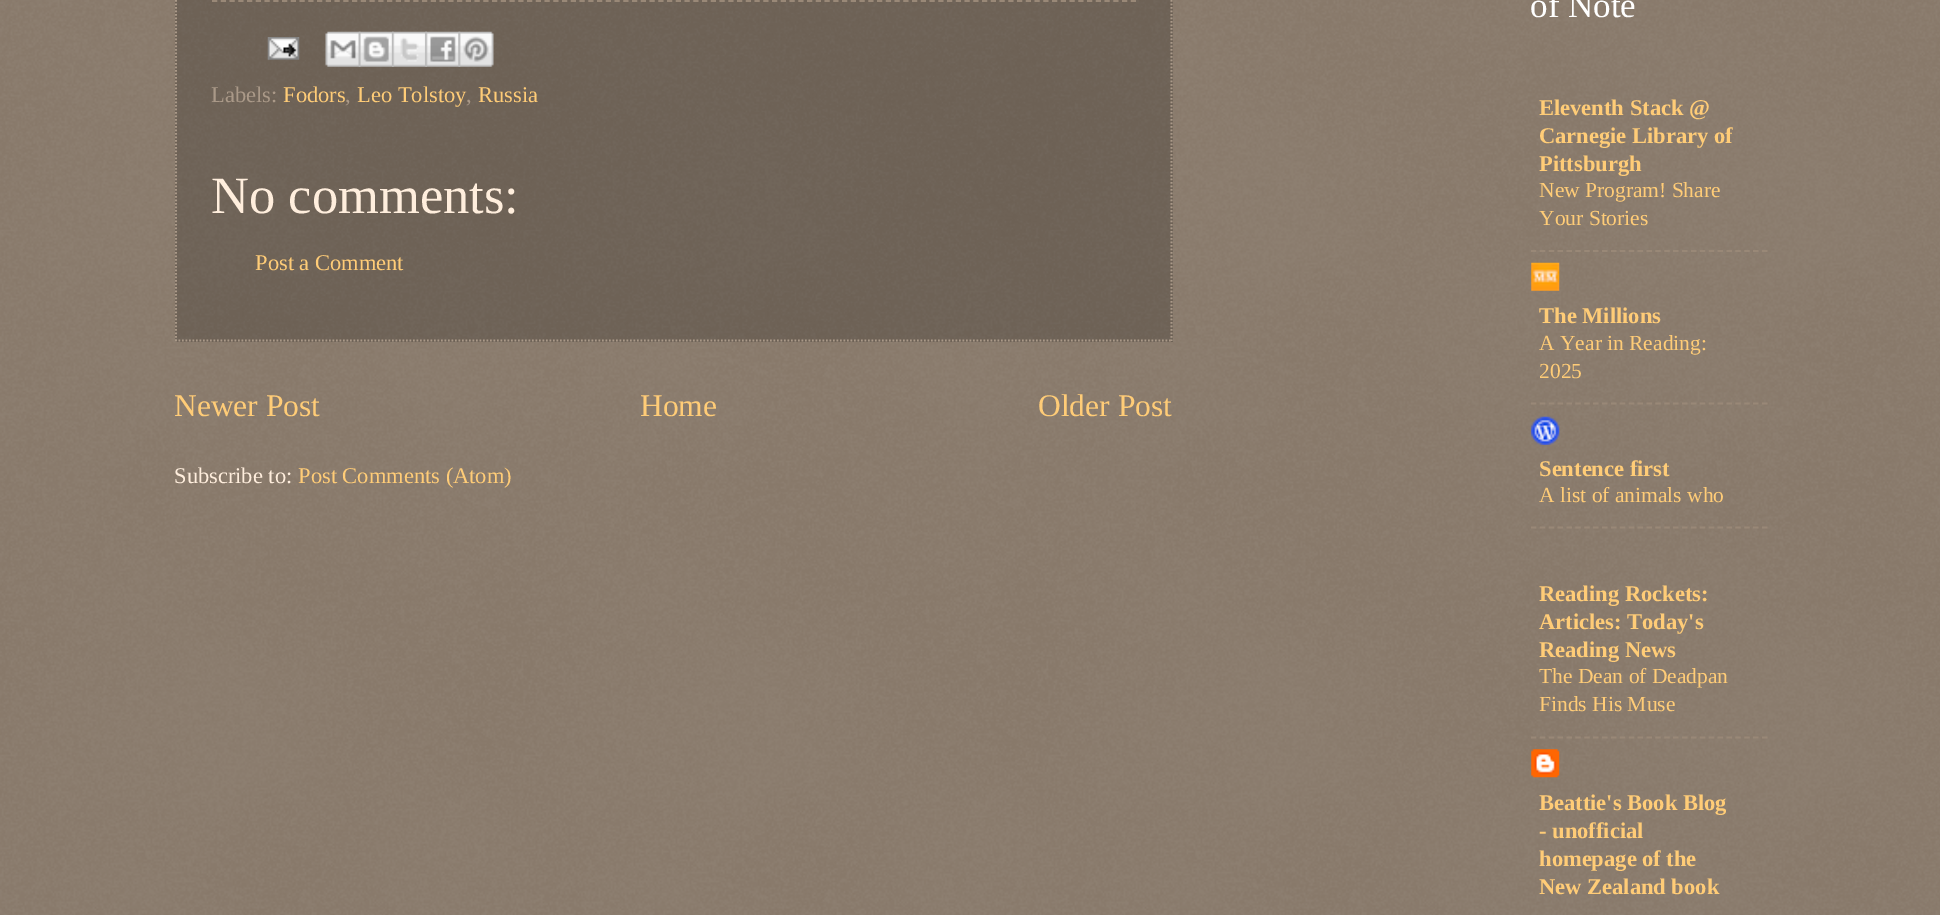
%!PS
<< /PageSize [1940 915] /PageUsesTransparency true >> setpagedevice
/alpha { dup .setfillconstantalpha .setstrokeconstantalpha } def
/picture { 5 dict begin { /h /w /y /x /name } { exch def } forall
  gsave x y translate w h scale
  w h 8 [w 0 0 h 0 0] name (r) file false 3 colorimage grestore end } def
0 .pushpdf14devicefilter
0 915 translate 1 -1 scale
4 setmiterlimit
0.467 0.4 0.333 setrgbcolor
0 0 1940 915 rectfill
(img1.rgb) 0 0 1940 915 picture
0.2 alpha
0 setgray
175 0 998 342 rectfill
1 alpha
0.667 0.6 0.533 setrgbcolor
1.8 setlinewidth
[1.75 1.75] 0 setdash
newpath 1171.5 -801.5 moveto 1171.5 341 lineto stroke
newpath 175 340.5 moveto 1172.5 340.5 lineto stroke
newpath 176 -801.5 moveto 176 341 lineto stroke
0.6 0.533 0.467 setrgbcolor
[5.25 3.5] 0 setdash
newpath 212 1 moveto 1136 1 lineto stroke
(img2.rgb) 267 37 33 23 picture
(img3.rgb) 325 31 36 36 picture
(img4.rgb) 358 31 36 36 picture
(img5.rgb) 392 31 35 36 picture
(img6.rgb) 425 31 36 36 picture
(img7.rgb) 458 31 36 36 picture
/LiberationSerif-Regular [22.5 0 0 -22.5 0 0] selectfont
0.667 0.6 0.533 setrgbcolor
211 102 moveto (Labels:) show
1 0.8 0.467 setrgbcolor
283 102 moveto (Fodors) show
0.667 0.6 0.533 setrgbcolor
345 102 moveto (,) show
1 0.8 0.467 setrgbcolor
357 102 moveto (Leo Tolstoy) show
0.667 0.6 0.533 setrgbcolor
466 102 moveto (,) show
1 0.8 0.467 setrgbcolor
478 102 moveto (Russia) show
/LiberationSerif-Regular [52.5 0 0 -52.5 0 0] selectfont
1 0.933 0.867 setrgbcolor
211 213 moveto (No comments:) show
/LiberationSerif-Regular [22.5 0 0 -22.5 0 0] selectfont
1 0.8 0.467 setrgbcolor
255 270 moveto (Post a Comment) show
/LiberationSerif-Regular [31.5 0 0 -31.5 0 0] selectfont
174 416 moveto (Newer Post) show
640 416 moveto (Home) show
1038 416 moveto (Older Post) show
/LiberationSerif-Regular [22.5 0 0 -22.5 0 0] selectfont
1 0.933 0.867 setrgbcolor
174 483 moveto (Subscribe to:) show
1 0.8 0.467 setrgbcolor
298 483 moveto (Post Comments \(Atom\)) show
/LiberationSerif-Regular [35 0 0 -35 0 0] selectfont
1 setgray
1530 17 moveto (of Note) show
/LiberationSerif-Bold [22.5 0 0 -22.5 0 0] selectfont
1 0.8 0.467 setrgbcolor
1539 115 moveto (Eleventh Stack @) show
1539 143 moveto (Carnegie Library of) show
1539 171 moveto (Pittsburgh) show
/LiberationSerif-Regular [21.5 0 0 -21.5 0 0] selectfont
1539 197 moveto (New Program! Share) show
1539 225 moveto (Your Stories) show
0.6 0.533 0.467 setrgbcolor
[5.25 3.64] 0 setdash
newpath 1531 251 moveto 1767.5 251 lineto stroke
(img8.rgb) 1531 262 29 29 picture
/LiberationSerif-Bold [22.5 0 0 -22.5 0 0] selectfont
1 0.8 0.467 setrgbcolor
1539 323 moveto (The Millions) show
/LiberationSerif-Regular [21.5 0 0 -21.5 0 0] selectfont
1539 350 moveto (A Year in Reading:) show
1539 378 moveto (2025) show
0.6 0.533 0.467 setrgbcolor
newpath 1531 403.5 moveto 1767.5 403.5 lineto stroke
(img9.rgb) 1531 416 29 29 picture
/LiberationSerif-Bold [22.5 0 0 -22.5 0 0] selectfont
1 0.8 0.467 setrgbcolor
1539 476 moveto (Sentence first) show
/LiberationSerif-Regular [21.5 0 0 -21.5 0 0] selectfont
1539 502 moveto (A list of animals who) show
0.6 0.533 0.467 setrgbcolor
newpath 1531 527.5 moveto 1767.5 527.5 lineto stroke
/LiberationSerif-Bold [22.5 0 0 -22.5 0 0] selectfont
1 0.8 0.467 setrgbcolor
1539 601 moveto (Reading Rockets:) show
1539 629 moveto (Articles: Today's) show
1539 657 moveto (Reading News) show
/LiberationSerif-Regular [21.5 0 0 -21.5 0 0] selectfont
1539 683 moveto (The Dean of Deadpan) show
1539 711 moveto (Finds His Muse) show
0.6 0.533 0.467 setrgbcolor
newpath 1531 737.5 moveto 1767.5 737.5 lineto stroke
(img10.rgb) 1531 749 29 29 picture
/LiberationSerif-Bold [22.5 0 0 -22.5 0 0] selectfont
1 0.8 0.467 setrgbcolor
1539 810 moveto (Beattie's Book Blog) show
1539 838 moveto (- unofficial) show
1539 866 moveto (homepage of the) show
1539 894 moveto (New Zealand book) show
.poppdf14devicefilter showpage
